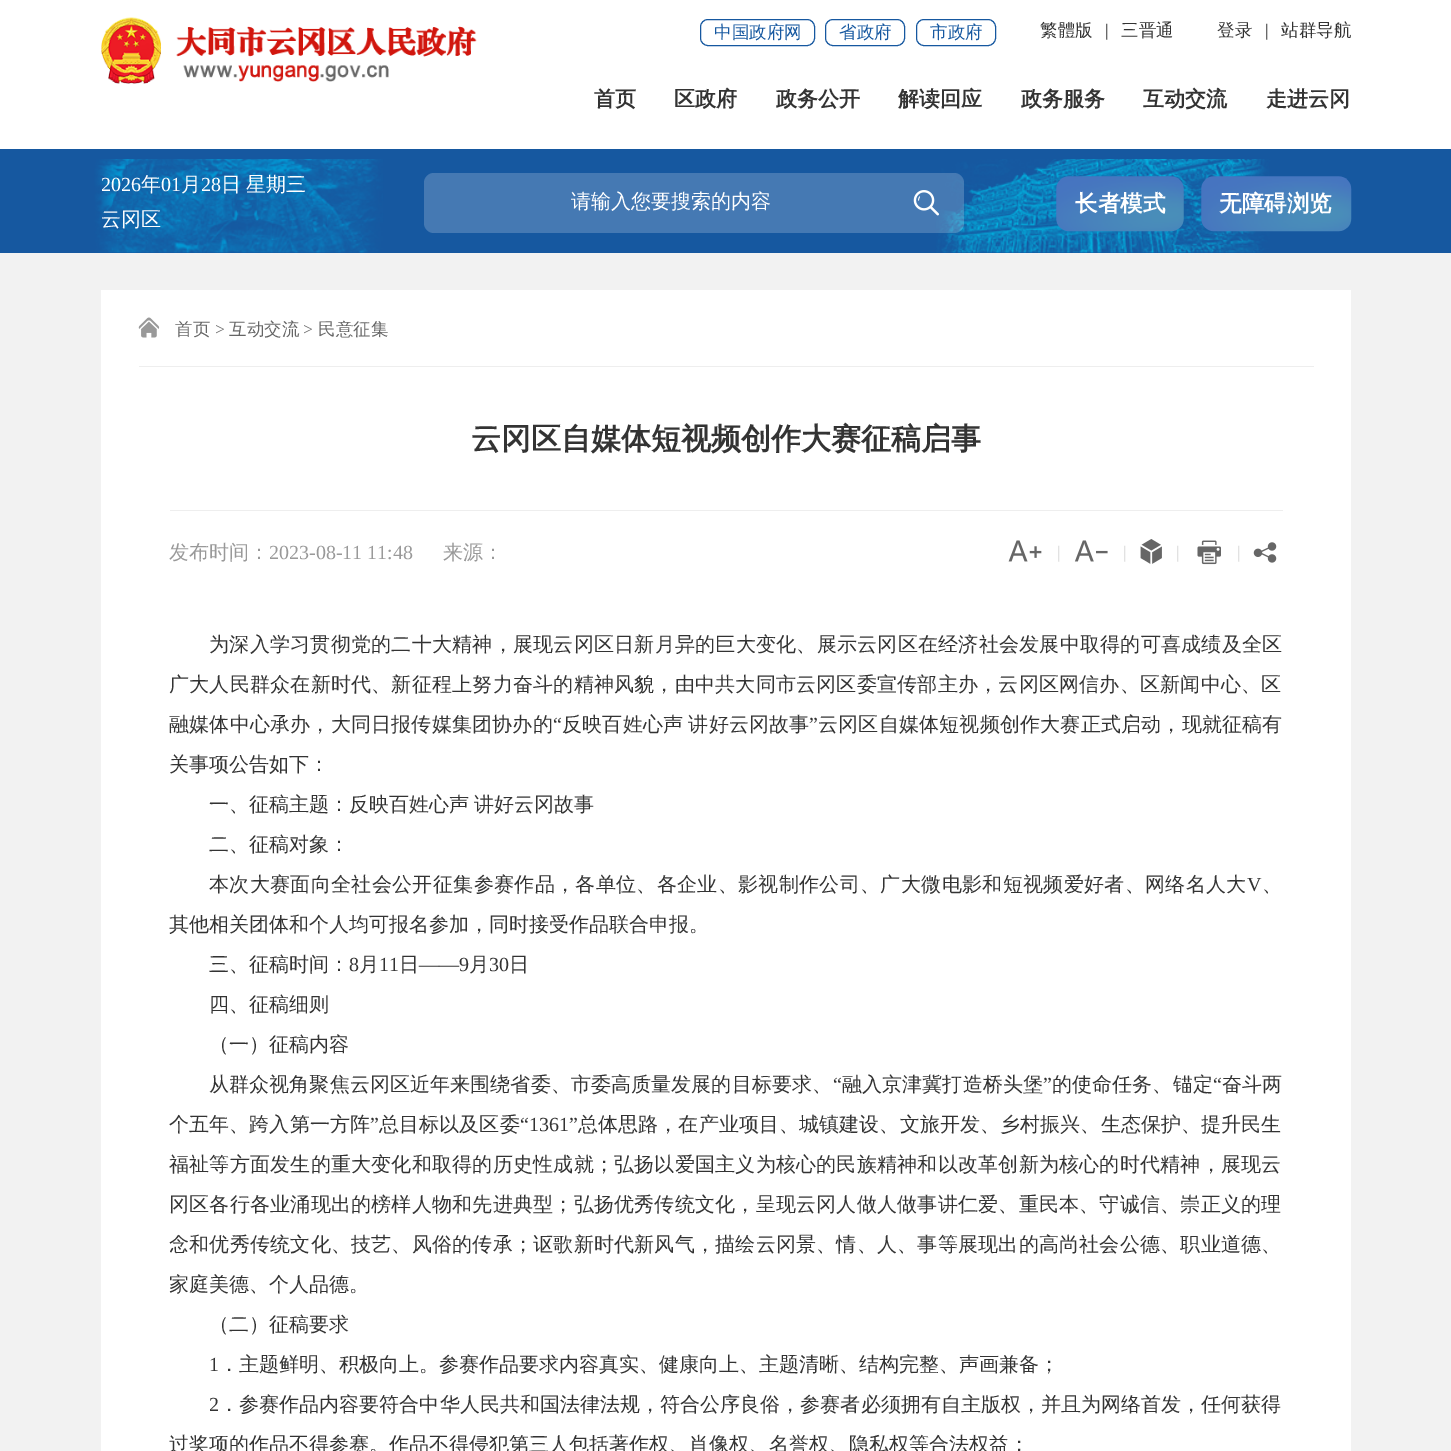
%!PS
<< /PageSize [1451 1451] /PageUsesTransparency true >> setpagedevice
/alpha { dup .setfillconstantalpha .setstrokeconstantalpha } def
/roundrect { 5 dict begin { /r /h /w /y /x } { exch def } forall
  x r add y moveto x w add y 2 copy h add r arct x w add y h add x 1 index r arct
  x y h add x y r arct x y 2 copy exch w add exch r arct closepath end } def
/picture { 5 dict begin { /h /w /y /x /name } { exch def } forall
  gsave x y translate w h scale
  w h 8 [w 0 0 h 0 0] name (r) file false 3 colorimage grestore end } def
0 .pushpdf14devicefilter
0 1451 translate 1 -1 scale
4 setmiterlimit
1 setgray
0 0 1451 1451 rectfill
0.086 0.345 0.627 setrgbcolor
0 149 1451 10 rectfill
(img1.rgb) 101 17 376 67 picture
700.5 19.5 114 26 7.5 roundrect stroke
/WenQuanYiZenHei-Medium [17.5 0 0 -17.5 0 0] selectfont
714 38 moveto (中国政府网) show
825.5 19.5 79 26 7.5 roundrect stroke
839 38 moveto (省政府) show
916.5 19.5 79 26 7.5 roundrect stroke
930 38 moveto (市政府) show
0.2 setgray
1040 36 moveto (繁體版) show
/LiberationSerif-Regular [17.5 0 0 -17.5 0 0] selectfont
1105 36 moveto (|) show
/WenQuanYiZenHei-Medium [17.5 0 0 -17.5 0 0] selectfont
1121 36 moveto (三晋通) show
1217 36 moveto (登录) show
/LiberationSerif-Regular [17.5 0 0 -17.5 0 0] selectfont
1265 36 moveto (|) show
/WenQuanYiZenHei-Medium [17.5 0 0 -17.5 0 0] selectfont
1281 36 moveto (站群导航) show
/WenQuanYiZenHei-Bold [21 0 0 -21 0 0] selectfont
594 106 moveto (首页) show
674 106 moveto (区政府) show
776 106 moveto (政务公开) show
898 106 moveto (解读回应) show
1021 106 moveto (政务服务) show
1143 106 moveto (互动交流) show
1266 106 moveto (走进云冈) show
0.086 0.345 0.627 setrgbcolor
0 252 1451 1 rectfill
(img2.rgb) 0 159 1451 94 picture
/LiberationSerif-Regular [20 0 0 -20 0 0] selectfont
1 setgray
101 191 moveto (2026) show
/WenQuanYiZenHei-Medium [20 0 0 -20 0 0] selectfont
141 191 moveto (年) show
/LiberationSerif-Regular [20 0 0 -20 0 0] selectfont
161 191 moveto (01) show
/WenQuanYiZenHei-Medium [20 0 0 -20 0 0] selectfont
181 191 moveto (月) show
/LiberationSerif-Regular [20 0 0 -20 0 0] selectfont
201 191 moveto (28) show
/WenQuanYiZenHei-Medium [20 0 0 -20 0 0] selectfont
221 191 moveto (日) show
246 191 moveto (星期三) show
101 226 moveto (云冈区) show
0.2 alpha
424 173 540 60 10 roundrect fill
1 alpha
571 208 moveto (请输入您要搜索的内容) show
(img3.rgb) 913 190 26 26 picture
(img4.rgb) 1056 176 128 56 picture
/WenQuanYiZenHei-Bold [22.5 0 0 -22.5 0 0] selectfont
1075 211 moveto (长者模式) show
(img5.rgb) 1201 176 151 56 picture
1219 211 moveto (无障碍浏览) show
0.949 setgray
0 253 1451 1198 rectfill
1 setgray
101 290 1250 1161 rectfill
0.933 setgray
139 366 1175 1 rectfill
(img6.rgb) 138 317 22 21 picture
/WenQuanYiZenHei-Medium [17.5 0 0 -17.5 0 0] selectfont
0.4 setgray
175 335 moveto (首页) show
/LiberationSerif-Regular [17.5 0 0 -17.5 0 0] selectfont
215 335 moveto (>) show
/WenQuanYiZenHei-Medium [17.5 0 0 -17.5 0 0] selectfont
229 335 moveto (互动交流) show
/LiberationSerif-Regular [17.5 0 0 -17.5 0 0] selectfont
303 335 moveto (>) show
/WenQuanYiZenHei-Medium [17.5 0 0 -17.5 0 0] selectfont
318 335 moveto (民意征集) show
/WenQuanYiZenHei-Bold [30 0 0 -30 0 0] selectfont
0.2 setgray
471 449 moveto (云冈区自媒体短视频创作大赛征稿启事) show
0.933 setgray
170 510 1113 1 rectfill
/WenQuanYiZenHei-Medium [20 0 0 -20 0 0] selectfont
0.6 setgray
169 559 moveto (发布时间：) show
/LiberationSerif-Regular [20 0 0 -20 0 0] selectfont
269 559 moveto (2023-08-11 11:48) show
/WenQuanYiZenHei-Medium [20 0 0 -20 0 0] selectfont
443 559 moveto (来源：) show
(img7.rgb) 1008 540 34 22 picture
/LiberationSerif-Regular [17.5 0 0 -17.5 0 0] selectfont
0.847 setgray
1057 558 moveto (|) show
(img8.rgb) 1074 540 34 22 picture
1123 558 moveto (|) show
(img9.rgb) 1140 539 22 25 picture
1176 558 moveto (|) show
(img10.rgb) 1197 540 24 25 picture
1237 558 moveto (|) show
(img11.rgb) 1253 542 24 21 picture
/WenQuanYiZenHei-Medium [20 0 0 -20 0 0] selectfont
0.2 setgray
209 651 moveto 0.25 0 (为深入学习贯彻党的二十大精神，展现云冈区日新月异的巨大变化、展示云冈区在经济社会发展中取得的可喜成绩及全区) ashow
169 691 moveto 0.23 0 (广大人民群众在新时代、新征程上努力奋斗的精神风貌，由中共大同市云冈区委宣传部主办，云冈区网信办、区新闻中心、区) ashow
169 731 moveto 0.2 0 (融媒体中心承办，大同日报传媒集团协办的) ashow
/LiberationSerif-Regular [20 0 0 -20 0 0] selectfont
553 731 moveto 0.2 0 (“) ashow
/WenQuanYiZenHei-Medium [20 0 0 -20 0 0] selectfont
562 731 moveto -1 0 32 0.2 0 (反映百姓心声 讲好云冈故事) awidthshow
/LiberationSerif-Regular [20 0 0 -20 0 0] selectfont
809 731 moveto 0.2 0 (”) ashow
/WenQuanYiZenHei-Medium [20 0 0 -20 0 0] selectfont
818 731 moveto 0.2 0 (云冈区自媒体短视频创作大赛正式启动，现就征稿有) ashow
169 771 moveto (关事项公告如下：) show
209 811 moveto -1 0 32 (一、征稿主题：反映百姓心声 讲好云冈故事) widthshow
209 851 moveto (二、征稿对象：) show
209 891 moveto 0.35 0 (本次大赛面向全社会公开征集参赛作品，各单位、各企业、影视制作公司、广大微电影和短视频爱好者、网络名人大) ashow
/LiberationSerif-Regular [20 0 0 -20 0 0] selectfont
1247 891 moveto 0.35 0 (V) ashow
/WenQuanYiZenHei-Medium [20 0 0 -20 0 0] selectfont
1262 891 moveto 0.35 0 (、) ashow
169 931 moveto (其他相关团体和个人均可报名参加，同时接受作品联合申报。) show
209 971 moveto (三、征稿时间：) show
/LiberationSerif-Regular [20 0 0 -20 0 0] selectfont
349 971 moveto (8) show
/WenQuanYiZenHei-Medium [20 0 0 -20 0 0] selectfont
359 971 moveto (月) show
/LiberationSerif-Regular [20 0 0 -20 0 0] selectfont
379 971 moveto (11) show
/WenQuanYiZenHei-Medium [20 0 0 -20 0 0] selectfont
399 971 moveto (日) show
/LiberationSerif-Regular [20 0 0 -20 0 0] selectfont
419 971 moveto (——9) show
/WenQuanYiZenHei-Medium [20 0 0 -20 0 0] selectfont
469 971 moveto (月) show
/LiberationSerif-Regular [20 0 0 -20 0 0] selectfont
489 971 moveto (30) show
/WenQuanYiZenHei-Medium [20 0 0 -20 0 0] selectfont
509 971 moveto (日) show
209 1011 moveto (四、征稿细则) show
209 1051 moveto (（一）征稿内容) show
209 1091 moveto 0.1 0 (从群众视角聚焦云冈区近年来围绕省委、市委高质量发展的目标要求、) ashow
/LiberationSerif-Regular [20 0 0 -20 0 0] selectfont
833 1091 moveto 0.1 0 (“) ashow
/WenQuanYiZenHei-Medium [20 0 0 -20 0 0] selectfont
842 1091 moveto 0.1 0 (融入京津冀打造桥头堡) ashow
/LiberationSerif-Regular [20 0 0 -20 0 0] selectfont
1043 1091 moveto 0.1 0 (”) ashow
/WenQuanYiZenHei-Medium [20 0 0 -20 0 0] selectfont
1052 1091 moveto 0.1 0 (的使命任务、锚定) ashow
/LiberationSerif-Regular [20 0 0 -20 0 0] selectfont
1213 1091 moveto 0.1 0 (“) ashow
/WenQuanYiZenHei-Medium [20 0 0 -20 0 0] selectfont
1222 1091 moveto 0.1 0 (奋斗两) ashow
169 1131 moveto 0.1 0 (个五年、跨入第一方阵) ashow
/LiberationSerif-Regular [20 0 0 -20 0 0] selectfont
370 1131 moveto 0.1 0 (”) ashow
/WenQuanYiZenHei-Medium [20 0 0 -20 0 0] selectfont
379 1131 moveto 0.1 0 (总目标以及区委) ashow
/LiberationSerif-Regular [20 0 0 -20 0 0] selectfont
520 1131 moveto 0.1 0 (“1361”) ashow
/WenQuanYiZenHei-Medium [20 0 0 -20 0 0] selectfont
578 1131 moveto 0.1 0 (总体思路，在产业项目、城镇建设、文旅开发、乡村振兴、生态保护、提升民生) ashow
169 1171 moveto 0.23 0 (福祉等方面发生的重大变化和取得的历史性成就；弘扬以爱国主义为核心的民族精神和以改革创新为核心的时代精神，展现云) ashow
169 1211 moveto 0.23 0 (冈区各行各业涌现出的榜样人物和先进典型；弘扬优秀传统文化，呈现云冈人做人做事讲仁爱、重民本、守诚信、崇正义的理) ashow
169 1251 moveto 0.23 0 (念和优秀传统文化、技艺、风俗的传承；讴歌新时代新风气，描绘云冈景、情、人、事等展现出的高尚社会公德、职业道德、) ashow
169 1291 moveto (家庭美德、个人品德。) show
209 1331 moveto (（二）征稿要求) show
/LiberationSerif-Regular [20 0 0 -20 0 0] selectfont
209 1371 moveto (1) show
/WenQuanYiZenHei-Medium [20 0 0 -20 0 0] selectfont
219 1371 moveto (．主题鲜明、积极向上。参赛作品要求内容真实、健康向上、主题清晰、结构完整、声画兼备；) show
/LiberationSerif-Regular [20 0 0 -20 0 0] selectfont
209 1411 moveto 0.05 0 (2) ashow
/WenQuanYiZenHei-Medium [20 0 0 -20 0 0] selectfont
219 1411 moveto 0.05 0 (．参赛作品内容要符合中华人民共和国法律法规，符合公序良俗，参赛者必须拥有自主版权，并且为网络首发，任何获得) ashow
169 1451 moveto (过奖项的作品不得参赛。作品不得侵犯第三人包括著作权、肖像权、名誉权、隐私权等合法权益；) show
.poppdf14devicefilter showpage
